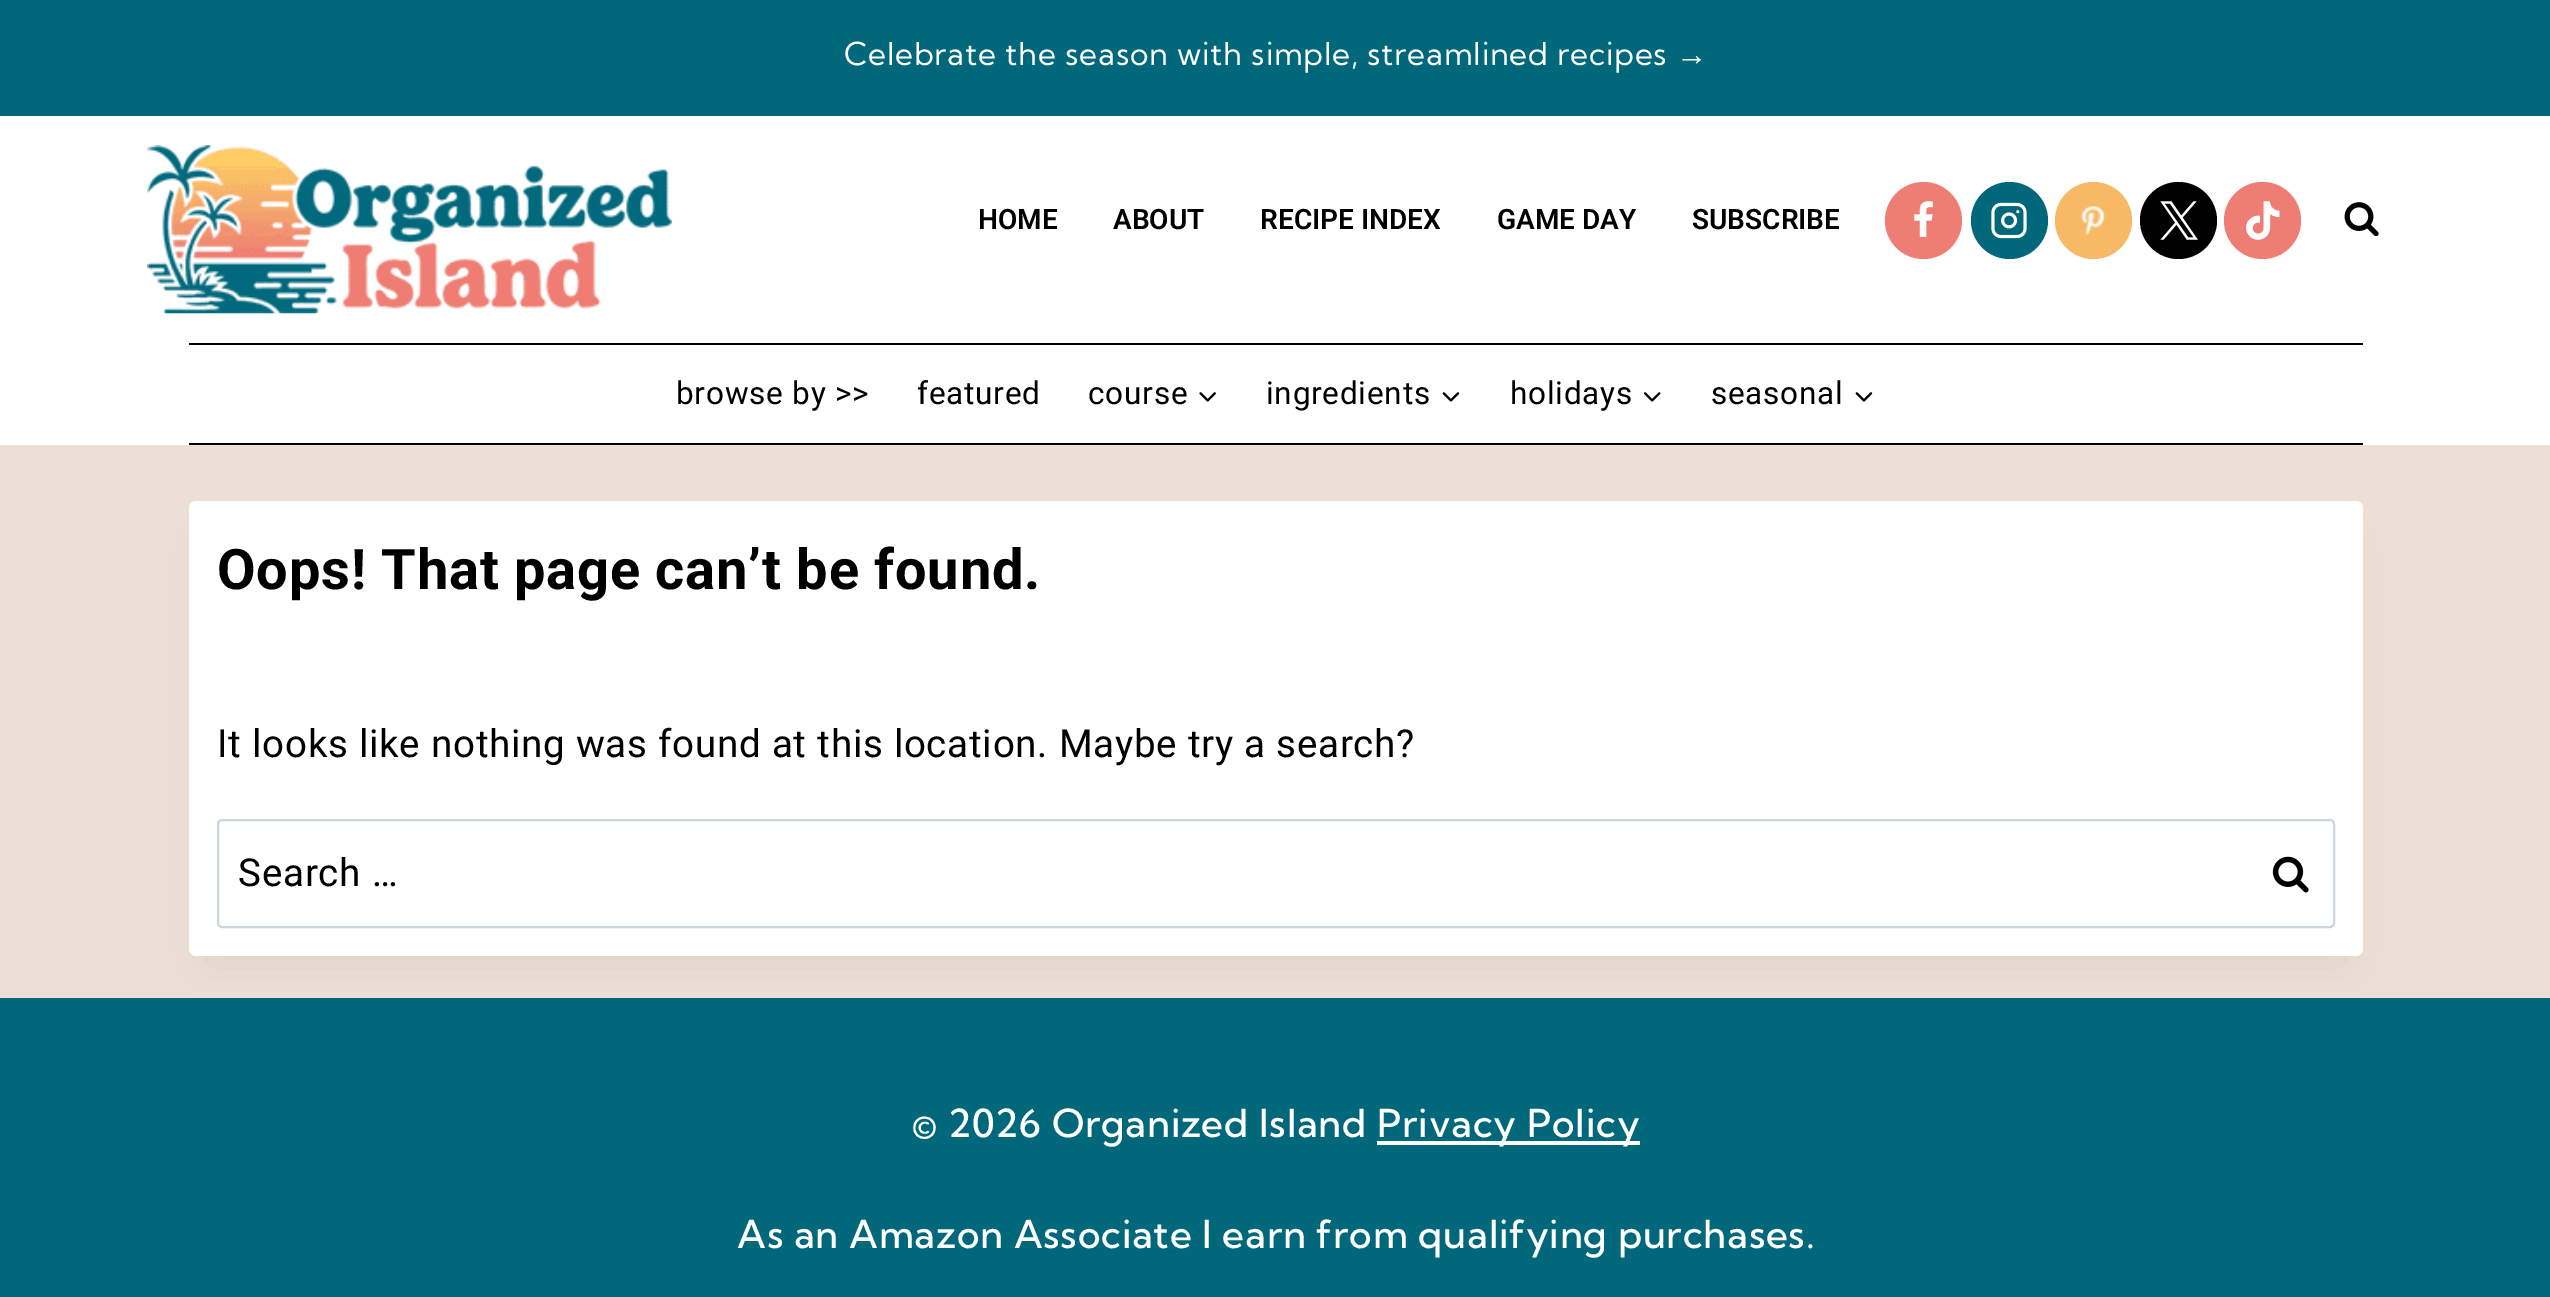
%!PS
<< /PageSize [2550 1297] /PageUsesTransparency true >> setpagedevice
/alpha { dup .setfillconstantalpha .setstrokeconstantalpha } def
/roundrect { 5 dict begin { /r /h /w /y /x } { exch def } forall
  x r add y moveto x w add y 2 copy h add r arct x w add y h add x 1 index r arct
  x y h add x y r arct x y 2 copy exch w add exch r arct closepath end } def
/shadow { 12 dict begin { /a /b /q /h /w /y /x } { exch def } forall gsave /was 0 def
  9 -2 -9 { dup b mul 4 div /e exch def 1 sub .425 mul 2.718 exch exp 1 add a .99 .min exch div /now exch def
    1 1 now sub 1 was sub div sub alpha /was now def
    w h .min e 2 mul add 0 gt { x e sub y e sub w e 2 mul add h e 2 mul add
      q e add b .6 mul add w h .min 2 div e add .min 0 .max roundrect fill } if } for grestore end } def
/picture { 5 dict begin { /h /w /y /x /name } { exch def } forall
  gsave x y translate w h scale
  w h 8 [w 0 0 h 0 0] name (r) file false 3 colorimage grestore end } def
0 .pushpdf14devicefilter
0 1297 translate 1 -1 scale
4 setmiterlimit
0.925 0.878 0.831 setrgbcolor
0 0 2550 1297 rectfill
1 setgray
0 116 2550 329 rectfill
0.004 0.408 0.486 setrgbcolor
0 0 2550 116 rectfill
/KumbhSans-Regular [31.5 0 0 -31.5 0 0] selectfont
1 setgray
844 65 moveto 0.77 0 (Celebrate the season with simple, streamlined recipes) ashow
/LiberationSans-Regular [31.5 0 0 -31.5 0 0] selectfont
1676 65 moveto 0.77 0 (→) ashow
(img1.rgb) 147 145 525 169 picture
/Roboto-SemiBold [28 0 0 -28 0 0] selectfont
0 setgray
978 229 moveto (HOME) show
1113 229 moveto (ABOUT) show
1260 229 moveto (RECIPE INDEX) show
1497 229 moveto (GAME DAY) show
1692 229 moveto (SUBSCRIBE) show
0.933 0.49 0.455 setrgbcolor
newpath 1923.5 220.5 38.5 0 360 arc closepath fill
(img2.rgb) 1914 201 19 36 picture
0.004 0.408 0.486 setrgbcolor
newpath 2009.5 220.5 38.5 0 360 arc closepath fill
(img3.rgb) 1991 202 36 37 picture
0.973 0.725 0.404 setrgbcolor
newpath 2093.5 220.5 38.5 0 360 arc closepath fill
(img4.rgb) 2080 206 26 29 picture
0 setgray
newpath 2178.5 220.5 38.5 0 360 arc closepath fill
(img5.rgb) 2160 201 38 39 picture
0.933 0.49 0.455 setrgbcolor
newpath 2262.5 220.5 38.5 0 360 arc closepath fill
(img6.rgb) 2246 201 34 39 picture
(img7.rgb) 2344 202 35 34 picture
0 setgray
189 343 2174 2 rectfill
189 443 2174 2 rectfill
/Roboto-Regular [31.5 0 0 -31.5 0 0] selectfont
676 404 moveto 0.77 0 (browse by >>) ashow
917 404 moveto 0.77 0 (featured) ashow
1088 404 moveto 0.77 0 (course) ashow
(img8.rgb) 1199 392 17 10 picture
1266 404 moveto 0.77 0 (ingredients) ashow
(img9.rgb) 1442 392 18 10 picture
1510 404 moveto 0.77 0 (holidays) ashow
(img10.rgb) 1643 392 18 10 picture
1711 404 moveto 0.77 0 (seasonal) ashow
(img9.rgb) 1855 392 18 10 picture
0.004 0.408 0.486 setrgbcolor
0 998 2550 299 rectfill
0 setgray
207 544 2138 420 0 22 0.05 shadow
1 setgray
189 501 2174 455 7 roundrect fill
/Roboto-Bold [56 0 0 -56 0 0] selectfont
0 setgray
217 589 moveto 0.77 0 (Oops! That page can’t be found.) ashow
/Roboto-Regular [38.5 0 0 -38.5 0 0] selectfont
217 757 moveto 0.77 0 (It looks like nothing was found at this location. Maybe try a search?) ashow
0.796 0.835 0.878 setrgbcolor
2 setlinewidth
218 820 2116 107 4 roundrect stroke
0 setgray
238 886 moveto 0.77 0 (Search …) ashow
(img11.rgb) 2272 856 37 37 picture
/KumbhSans-Medium [38.5 0 0 -38.5 0 0] selectfont
1 setgray
912 1137 moveto 0.77 0 (© 2026 Organized Island) ashow
1377 1141 263 4 rectfill
1377 1137 moveto 0.77 0 (Privacy Policy) ashow
737 1248 moveto 0.77 0 (As an Amazon Associate I earn from qualifying purchases.) ashow
.poppdf14devicefilter showpage
